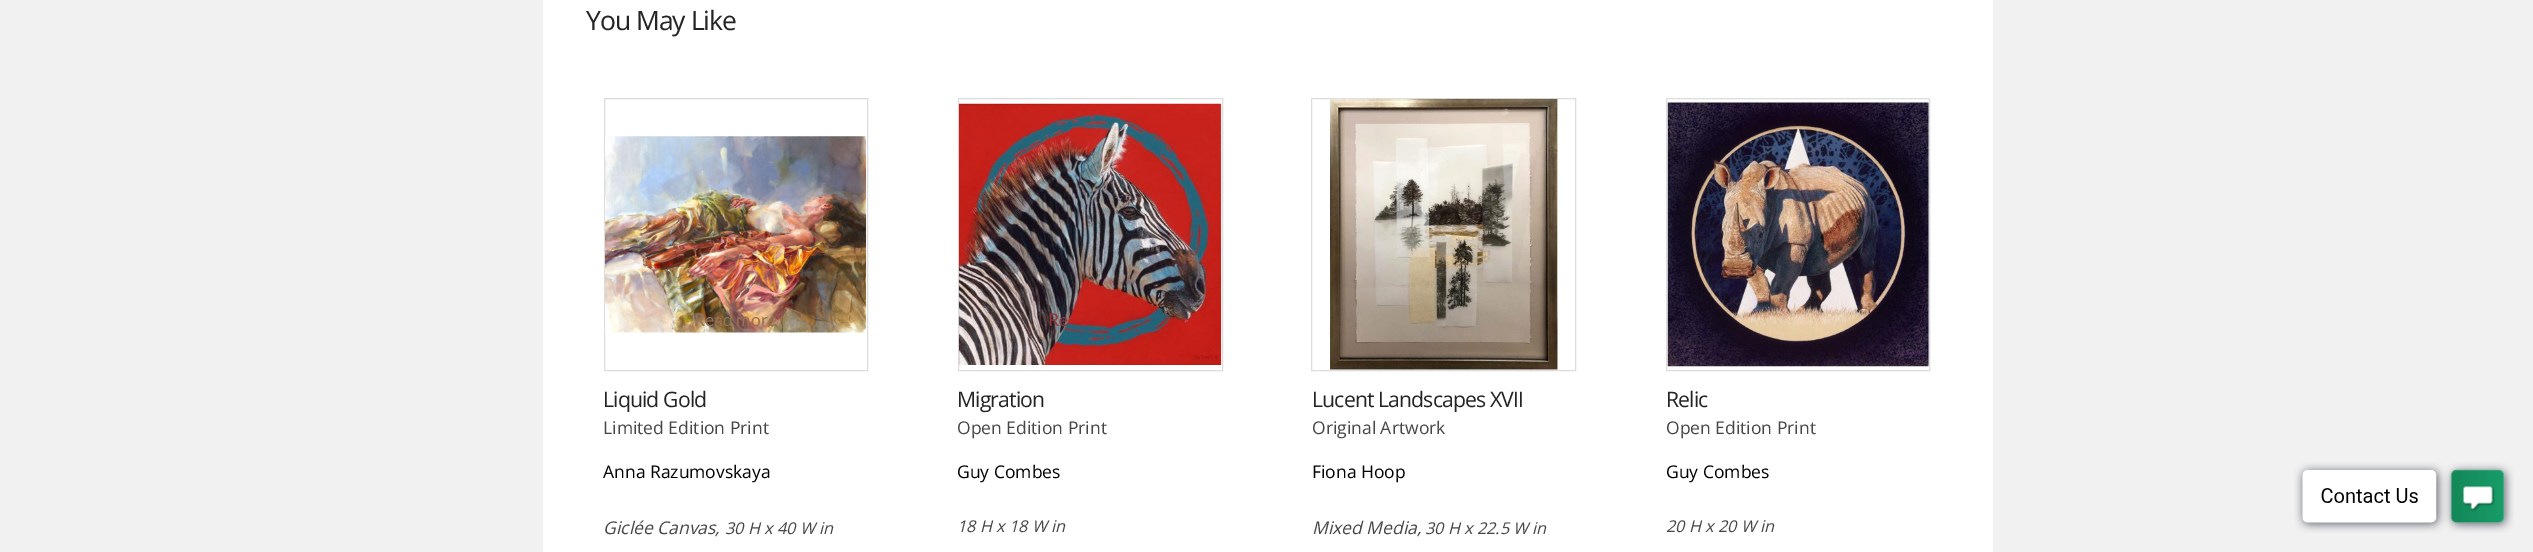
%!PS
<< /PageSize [2533 552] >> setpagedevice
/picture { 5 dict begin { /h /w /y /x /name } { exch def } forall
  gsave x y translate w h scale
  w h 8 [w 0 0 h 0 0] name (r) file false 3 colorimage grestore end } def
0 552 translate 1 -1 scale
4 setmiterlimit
0.945 setgray
0 0 2533 552 rectfill
1 setgray
543 0 1450 552 rectfill
/OpenSans-Regular [26.5 0 0 -26.5 0 0] selectfont
0.141 setgray
586 30 moveto -1 0 (You May Like) ashow
0.867 setgray
604.5 98.5 263 272 rectstroke
(img1.rgb) 605 136 262 197 picture
/Lato-Regular [17.5 0 0 -17.5 0 0] selectfont
0.596 0.451 0.325 setrgbcolor
694 326 moveto (Read more) show
/OpenSans-Regular [21.25 0 0 -21.25 0 0] selectfont
0.141 setgray
603 407 moveto -0.9 0 (Liquid Gold) ashow
/OpenSans-Regular [17.5 0 0 -17.5 0 0] selectfont
0.275 setgray
603 434 moveto (Limited Edition Print) show
0 setgray
603 478 moveto (Anna Razumovskaya) show
/OpenSans-Italic [17.5 0 0 -17.5 0 0] selectfont
0.275 setgray
603 534 moveto (Giclée Canvas,) show
/OpenSans-Italic [16.25 0 0 -16.25 0 0] selectfont
725 534 moveto (30 H x 40 W in) show
0.867 setgray
958.5 98.5 264 272 rectstroke
(img2.rgb) 958 103 264 262 picture
/Lato-Regular [17.5 0 0 -17.5 0 0] selectfont
0.576 0.212 0.216 setrgbcolor
1048 326 moveto (Re) show
/OpenSans-Regular [21.25 0 0 -21.25 0 0] selectfont
0.141 setgray
957 407 moveto -0.9 0 (Migration) ashow
/OpenSans-Regular [17.5 0 0 -17.5 0 0] selectfont
0.275 setgray
957 434 moveto (Open Edition Print) show
0 setgray
957 478 moveto (Guy Combes) show
/OpenSans-Italic [16.25 0 0 -16.25 0 0] selectfont
0.275 setgray
957 532 moveto (18 H x 18 W in) show
0.867 setgray
1311.5 98.5 264 272 rectstroke
(img3.rgb) 1330 98 228 272 picture
/OpenSans-Regular [21.25 0 0 -21.25 0 0] selectfont
0.141 setgray
1312 407 moveto -0.9 0 (Lucent Landscapes XVII) ashow
/OpenSans-Regular [17.5 0 0 -17.5 0 0] selectfont
0.275 setgray
1312 434 moveto (Original Artwork) show
0 setgray
1312 478 moveto (Fiona Hoop) show
/OpenSans-Italic [17.5 0 0 -17.5 0 0] selectfont
0.275 setgray
1312 534 moveto (Mixed Media,) show
/OpenSans-Italic [16.25 0 0 -16.25 0 0] selectfont
1425 534 moveto (30 H x 22.5 W in) show
0.867 setgray
1666.5 98.5 263 272 rectstroke
(img4.rgb) 1667 102 262 265 picture
/OpenSans-Regular [21.25 0 0 -21.25 0 0] selectfont
0.141 setgray
1666 407 moveto -0.9 0 (Relic) ashow
/OpenSans-Regular [17.5 0 0 -17.5 0 0] selectfont
0.275 setgray
1666 434 moveto (Open Edition Print) show
0 setgray
1666 478 moveto (Guy Combes) show
/OpenSans-Italic [16.25 0 0 -16.25 0 0] selectfont
0.275 setgray
1666 532 moveto (20 H x 20 W in) show
(img5.rgb) 2294 462 220 71 picture
showpage
